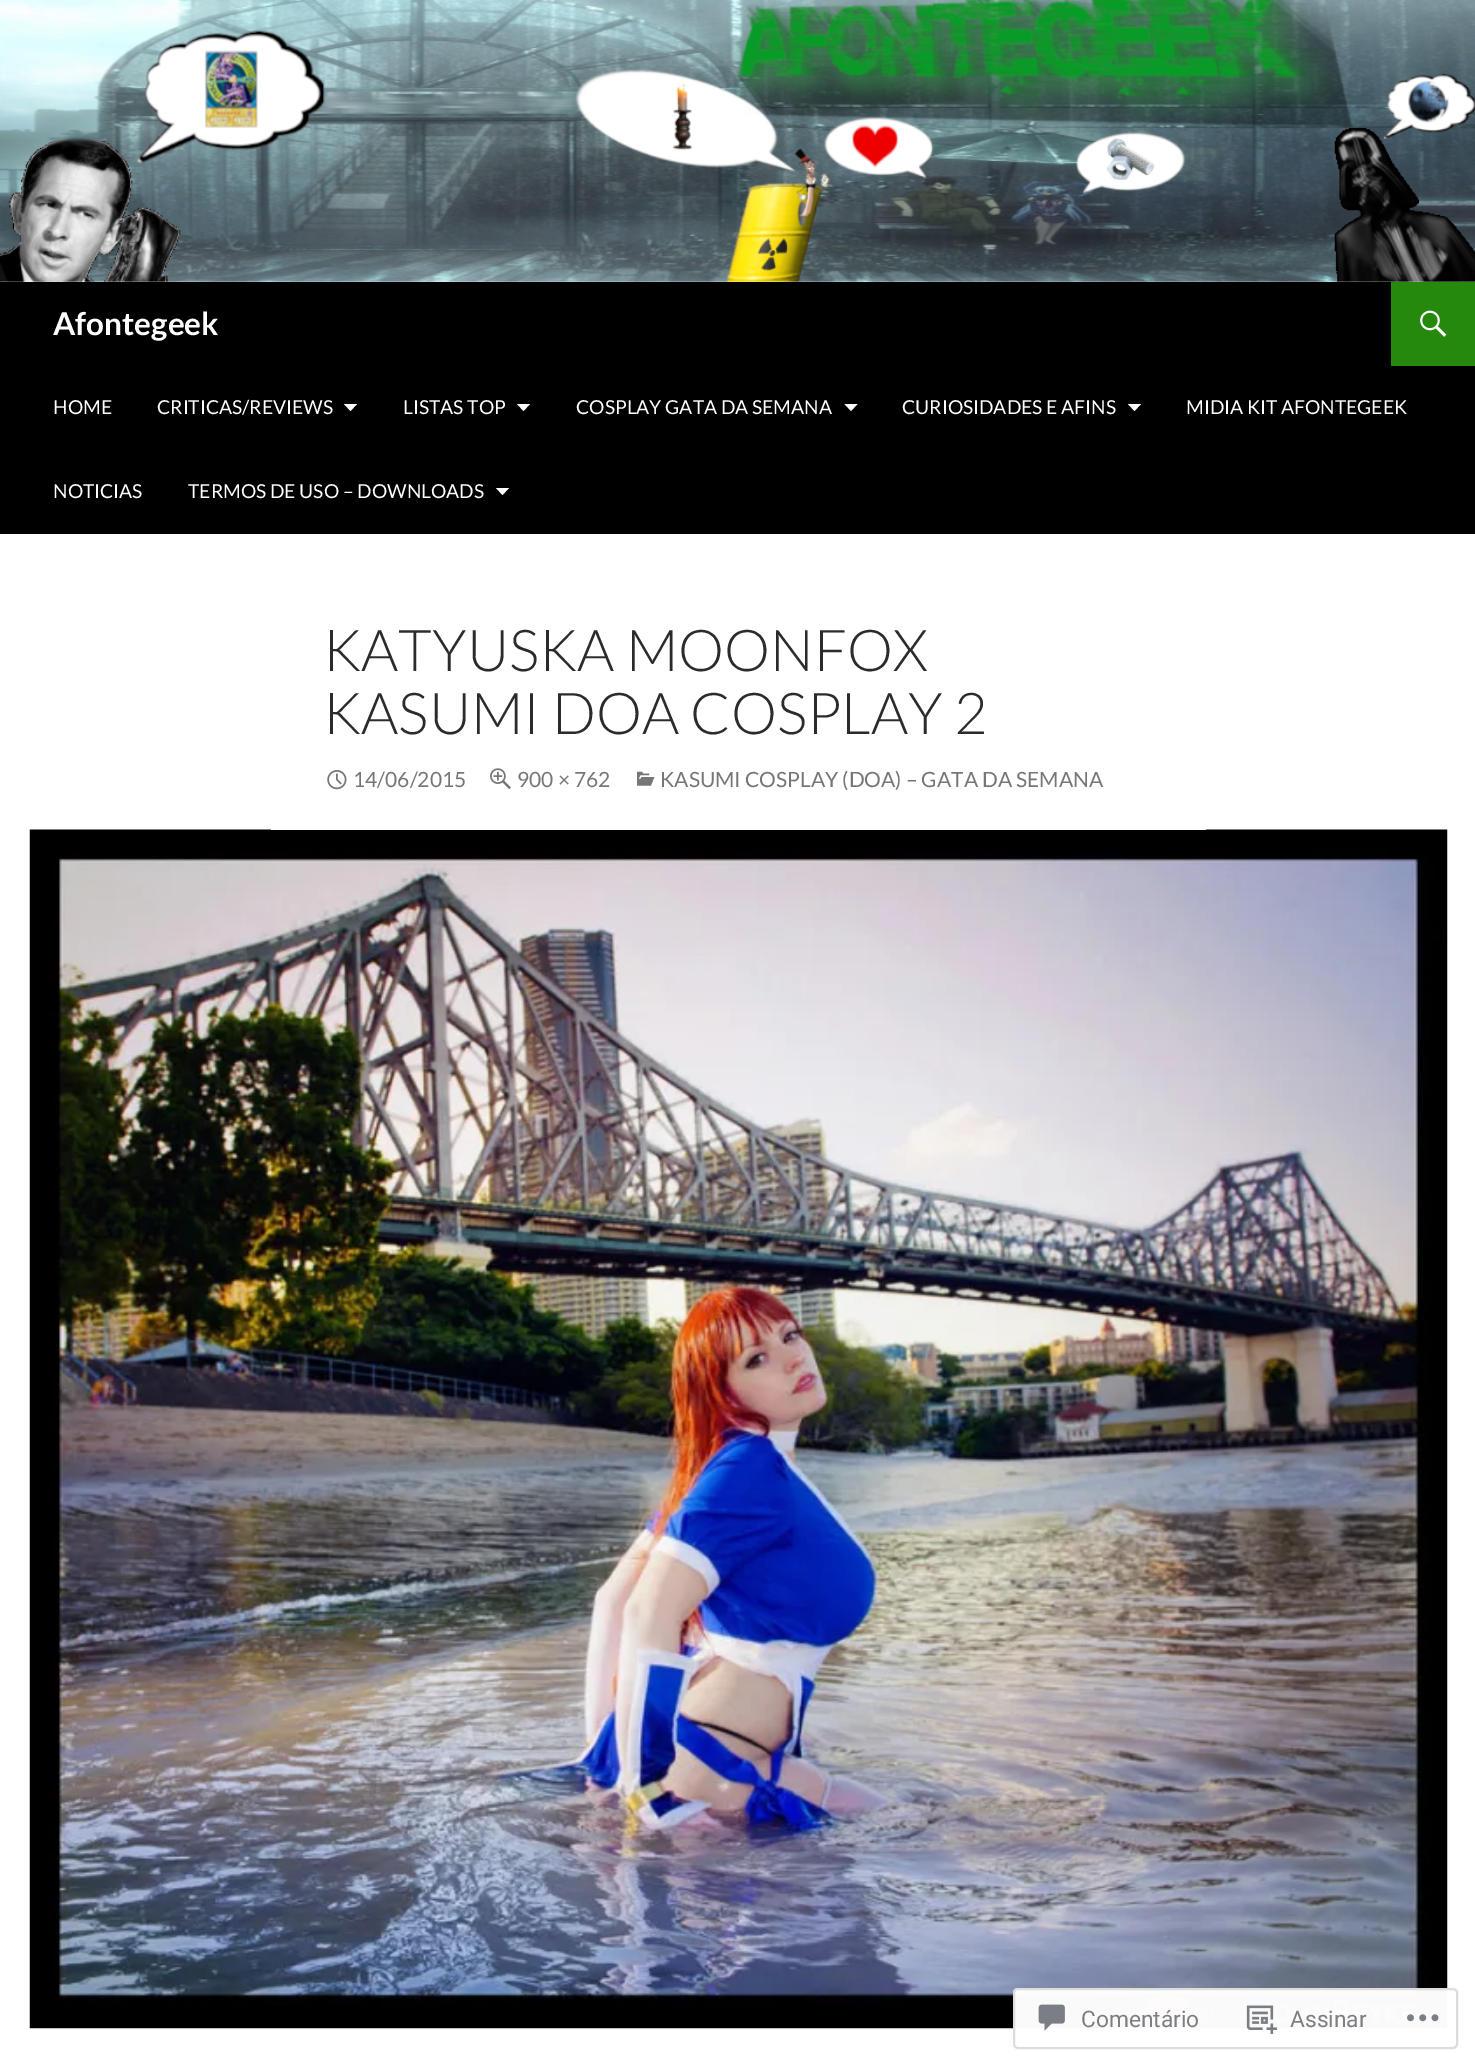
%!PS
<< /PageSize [1475 2066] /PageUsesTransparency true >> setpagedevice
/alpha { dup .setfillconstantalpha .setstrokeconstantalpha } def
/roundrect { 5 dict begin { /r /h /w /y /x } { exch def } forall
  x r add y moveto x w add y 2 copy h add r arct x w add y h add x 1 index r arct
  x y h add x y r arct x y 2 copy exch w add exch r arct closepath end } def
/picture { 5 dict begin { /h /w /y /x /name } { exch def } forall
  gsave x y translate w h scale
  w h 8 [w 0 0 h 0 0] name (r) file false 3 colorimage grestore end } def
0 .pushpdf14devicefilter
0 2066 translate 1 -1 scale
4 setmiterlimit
1 setgray
0 0 1475 2066 rectfill
(img1.rgb) 0 0 1475 282 picture
0 setgray
0 282 1475 252 rectfill
/Lato-Bold [31.5 0 0 -31.5 0 0] selectfont
1 setgray
53 335 moveto (Afontegeek) show
0.141 0.537 0.051 setrgbcolor
1391 282 84 84 rectfill
(img2.rgb) 1420 310 27 27 picture
/Lato-Regular [19.25 0 0 -19.25 0 0] selectfont
1 setgray
53 414 moveto (HOME) show
157 414 moveto (CRITICAS/REVIEWS) show
newpath 344 404 moveto 357 404 lineto 350.5 411 lineto closepath fill
403 414 moveto (LISTAS TOP) show
newpath 517 404 moveto 530 404 lineto 523.5 411 lineto closepath fill
576 414 moveto (COSPLAY GATA DA SEMANA) show
newpath 844.5 404 moveto 857.5 404 lineto 851 411 lineto closepath fill
902 414 moveto (CURIOSIDADES E AFINS) show
newpath 1128 404 moveto 1141 404 lineto 1134.5 411 lineto closepath fill
1186 414 moveto (MIDIA KIT AFONTEGEEK) show
53 498 moveto (NOTICIAS) show
188 498 moveto (TERMOS DE USO – DOWNLOADS) show
newpath 496 488 moveto 509 488 lineto 502.5 495 lineto closepath fill
(img6.rgb) 29 829 1419 1200 picture
271 829 935 1 rectfill
/Lato-Light [57.75 0 0 -57.75 0 0] selectfont
0.169 setgray
323 671 moveto (KATYUSKA MOONFOX) show
323 734 moveto (KASUMI DOA COSPLAY 2) show
(img3.rgb) 327 770 20 20 picture
/Lato-Regular [21 0 0 -21 0 0] selectfont
0.463 setgray
353 787 moveto (14/06/2015) show
(img4.rgb) 490 768 21 22 picture
517 787 moveto (900 × 762) show
(img5.rgb) 637 771 18 15 picture
660 787 moveto (KASUMI COSPLAY \(DOA\) – GATA DA SEMANA) show
0.98 alpha
1 setgray
1013 1988 445 61 5 roundrect fill
0.863 0.863 0.871 setrgbcolor
2 setlinewidth
1014 1989 443 59 4 roundrect stroke
1 alpha
(img7.rgb) 1038 2004 27 27 picture
/Roboto-Regular [22.75 0 0 -22.75 0 0] selectfont
0.482 0.498 0.518 setrgbcolor
1081 2027 moveto (Comentário) show
(img8.rgb) 1246 2005 32 29 picture
1290 2027 moveto (Assinar) show
(img9.rgb) 1407 2014 32 8 picture
.poppdf14devicefilter showpage
